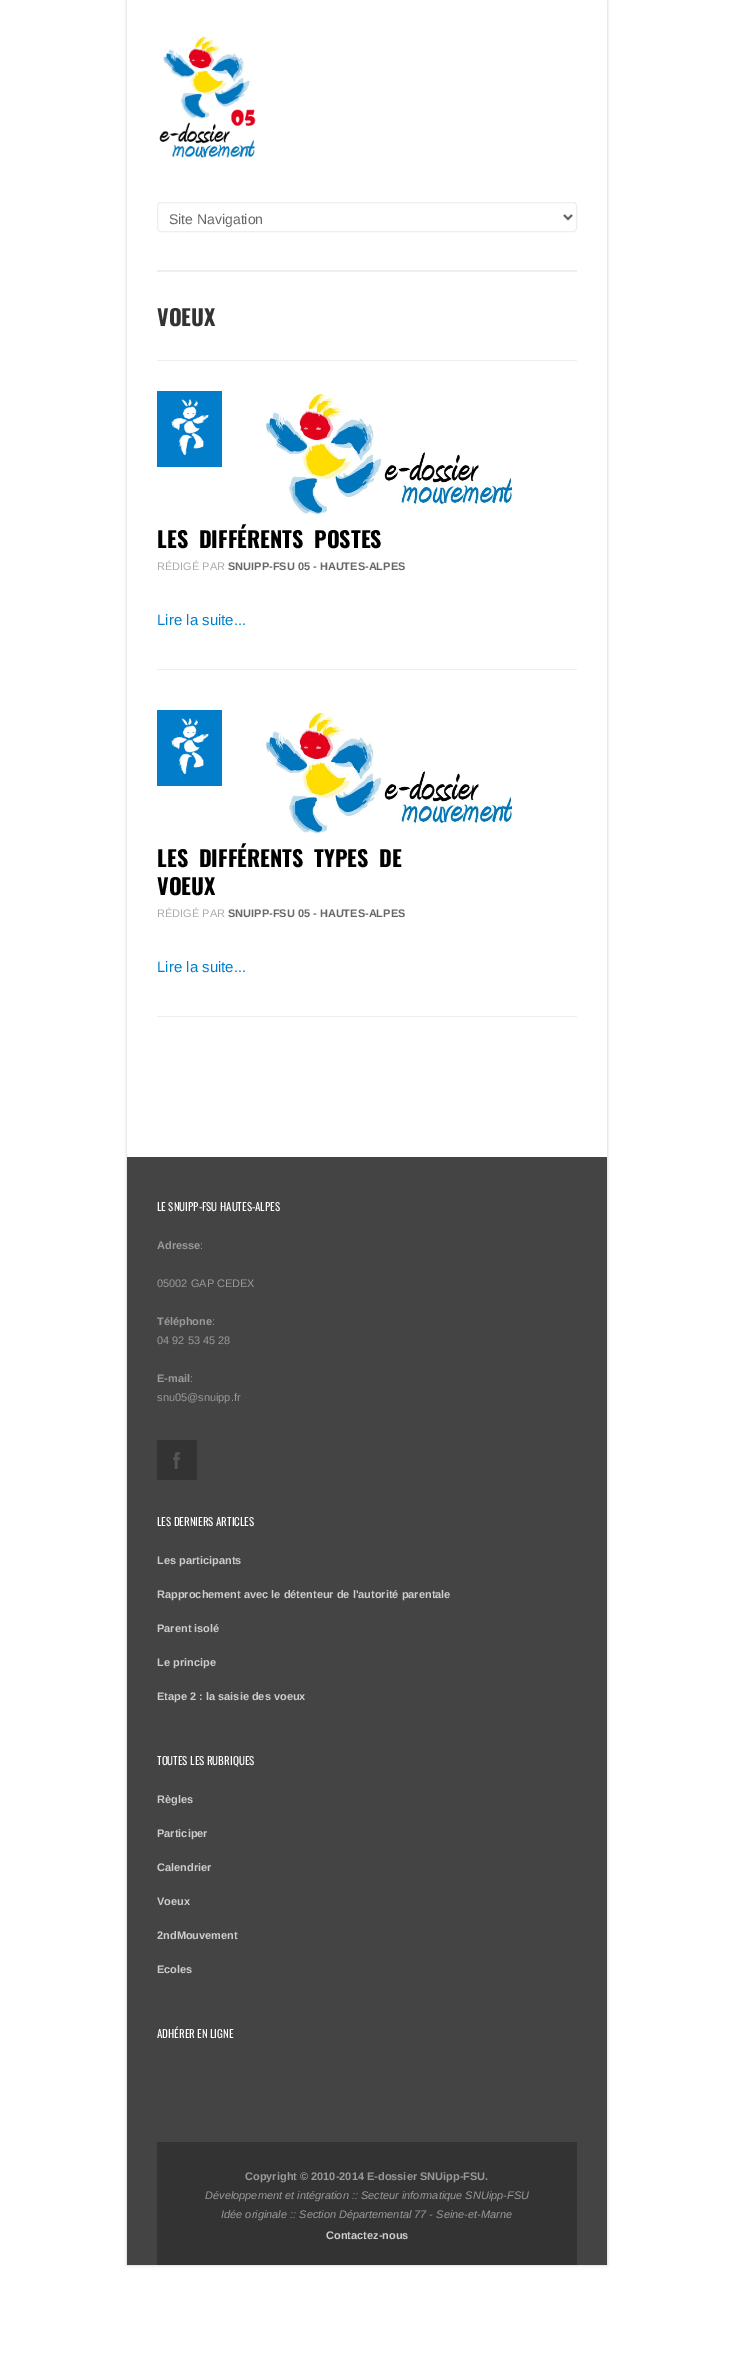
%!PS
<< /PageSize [734 2370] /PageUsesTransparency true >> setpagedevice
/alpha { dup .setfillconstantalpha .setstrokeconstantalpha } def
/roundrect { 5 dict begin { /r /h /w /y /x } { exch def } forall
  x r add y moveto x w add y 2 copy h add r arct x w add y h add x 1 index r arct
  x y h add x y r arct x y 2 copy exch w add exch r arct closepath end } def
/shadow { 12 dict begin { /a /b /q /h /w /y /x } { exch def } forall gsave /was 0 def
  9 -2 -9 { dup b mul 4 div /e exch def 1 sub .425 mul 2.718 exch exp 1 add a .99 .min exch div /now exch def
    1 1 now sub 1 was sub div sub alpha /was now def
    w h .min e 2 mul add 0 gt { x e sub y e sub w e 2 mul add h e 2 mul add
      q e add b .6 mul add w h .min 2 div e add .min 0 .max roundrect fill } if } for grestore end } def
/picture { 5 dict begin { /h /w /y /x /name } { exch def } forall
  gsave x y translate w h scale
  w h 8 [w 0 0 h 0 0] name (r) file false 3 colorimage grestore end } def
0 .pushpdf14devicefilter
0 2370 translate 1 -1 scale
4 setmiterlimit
1 setgray
0 0 734 2370 rectfill
gsave
newpath 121 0 moveto 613 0 lineto 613 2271 lineto 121 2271 lineto closepath 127 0 moveto 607 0 lineto 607 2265 lineto 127 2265 lineto closepath eoclip newpath
0 setgray
127 0 480 2265 0 1.5 0.2 shadow
grestore
0.933 setgray
157 270 420 2 rectfill
(img1.rgb) 159 35 97 123 picture
157.5 202.5 419 29 3.5 roundrect stroke
0.404 setgray
2 setlinewidth
newpath 564 215 moveto 568 219 lineto 572 215 lineto stroke
/LiberationSans-Regular [14 0 0 -14 0 0] selectfont
169 224 moveto (Site Navigation) show
0.933 setgray
157 360 420 1 rectfill
/Oswald-Bold [22 0 0 -22 0 0] selectfont
0.2 setgray
157 326 moveto (VOEUX) show
0.933 setgray
157 1016 420 1 rectfill
157 669 420 1 rectfill
0.008 0.49 0.792 setrgbcolor
157 391 65 76 rectfill
(img2.rgb) 171 399 38 56 picture
(img3.rgb) 265 391 250 124 picture
0 setgray
157 548 moveto 5 0 32 (LES DIFFÉRENTS POSTES) widthshow
/LiberationSans-Regular [11 0 0 -11 0 0] selectfont
0.667 setgray
157 570 moveto (RÉDIGÉ PAR) show
/LiberationSans-Bold [11 0 0 -11 0 0] selectfont
0.404 setgray
228 570 moveto (SNUIPP-FSU 05 - HAUTES-ALPES) show
/LiberationSans-Regular [15 0 0 -15 0 0] selectfont
0.008 0.49 0.792 setrgbcolor
157 625 moveto (Lire la suite...) show
157 710 65 76 rectfill
(img4.rgb) 171 718 38 56 picture
(img3.rgb) 265 710 250 124 picture
/Oswald-Bold [22 0 0 -22 0 0] selectfont
0 setgray
157 867 moveto 5 0 32 (LES DIFFÉRENTS TYPES DE) widthshow
157 895 moveto (VOEUX) show
/LiberationSans-Regular [11 0 0 -11 0 0] selectfont
0.667 setgray
157 917 moveto (RÉDIGÉ PAR) show
/LiberationSans-Bold [11 0 0 -11 0 0] selectfont
0.404 setgray
228 917 moveto (SNUIPP-FSU 05 - HAUTES-ALPES) show
/LiberationSans-Regular [15 0 0 -15 0 0] selectfont
0.008 0.49 0.792 setrgbcolor
157 972 moveto (Lire la suite...) show
0.267 setgray
127 1157 480 1108 rectfill
/Oswald-Regular [11 0 0 -11 0 0] selectfont
1 setgray
157 1211 moveto (LE SNUIPP-FSU HAUTES-ALPES) show
/LiberationSans-Bold [11 0 0 -11 0 0] selectfont
0.6 setgray
157 1249 moveto (Adresse) show
/LiberationSans-Regular [11 0 0 -11 0 0] selectfont
200 1249 moveto (:) show
157 1287 moveto (05002 GAP CEDEX) show
/LiberationSans-Bold [11 0 0 -11 0 0] selectfont
157 1325 moveto (Téléphone) show
/LiberationSans-Regular [11 0 0 -11 0 0] selectfont
212 1325 moveto (:) show
157 1344 moveto (04 92 53 45 28) show
/LiberationSans-Bold [11 0 0 -11 0 0] selectfont
157 1382 moveto (E-mail) show
/LiberationSans-Regular [11 0 0 -11 0 0] selectfont
190 1382 moveto (:) show
157 1401 moveto (snu05@snuipp.fr) show
0.2 setgray
157 1440 40 40 rectfill
(img5.rgb) 173 1452 7 17 picture
/Oswald-Regular [11 0 0 -11 0 0] selectfont
1 setgray
157 1526 moveto (LES DERNIERS ARTICLES) show
/LiberationSans-Bold [11 0 0 -11 0 0] selectfont
0.8 setgray
157 1564 moveto (Les participants) show
157 1598 moveto (Rapprochement avec le détenteur de l'autorité parentale) show
157 1632 moveto (Parent isolé) show
157 1666 moveto (Le principe) show
157 1700 moveto (Etape 2 : la saisie des voeux) show
/Oswald-Regular [11 0 0 -11 0 0] selectfont
1 setgray
157 1765 moveto (TOUTES LES RUBRIQUES) show
/LiberationSans-Bold [11 0 0 -11 0 0] selectfont
0.8 setgray
157 1803 moveto (Règles) show
157 1837 moveto (Participer) show
157 1871 moveto (Calendrier) show
157 1905 moveto (Voeux) show
157 1939 moveto (2ndMouvement) show
157 1973 moveto (Ecoles) show
/Oswald-Regular [11 0 0 -11 0 0] selectfont
1 setgray
157 2038 moveto (ADHÉRER EN LIGNE) show
0.2 setgray
157 2142 420 123 rectfill
/LiberationSans-Bold [11 0 0 -11 0 0] selectfont
0.6 setgray
245 2180 moveto (Copyright © 2010-2014 E-dossier SNUipp-FSU.) show
/LiberationSans-Italic [11 0 0 -11 0 0] selectfont
205 2199 moveto (Développement et intégration :: Secteur informatique SNUipp-FSU) show
221 2218 moveto (Idée originale :: Section Départemental 77 - Seine-et-Marne) show
/LiberationSans-Bold [11 0 0 -11 0 0] selectfont
0.8 setgray
326 2239 moveto (Contactez-nous) show
.poppdf14devicefilter showpage
